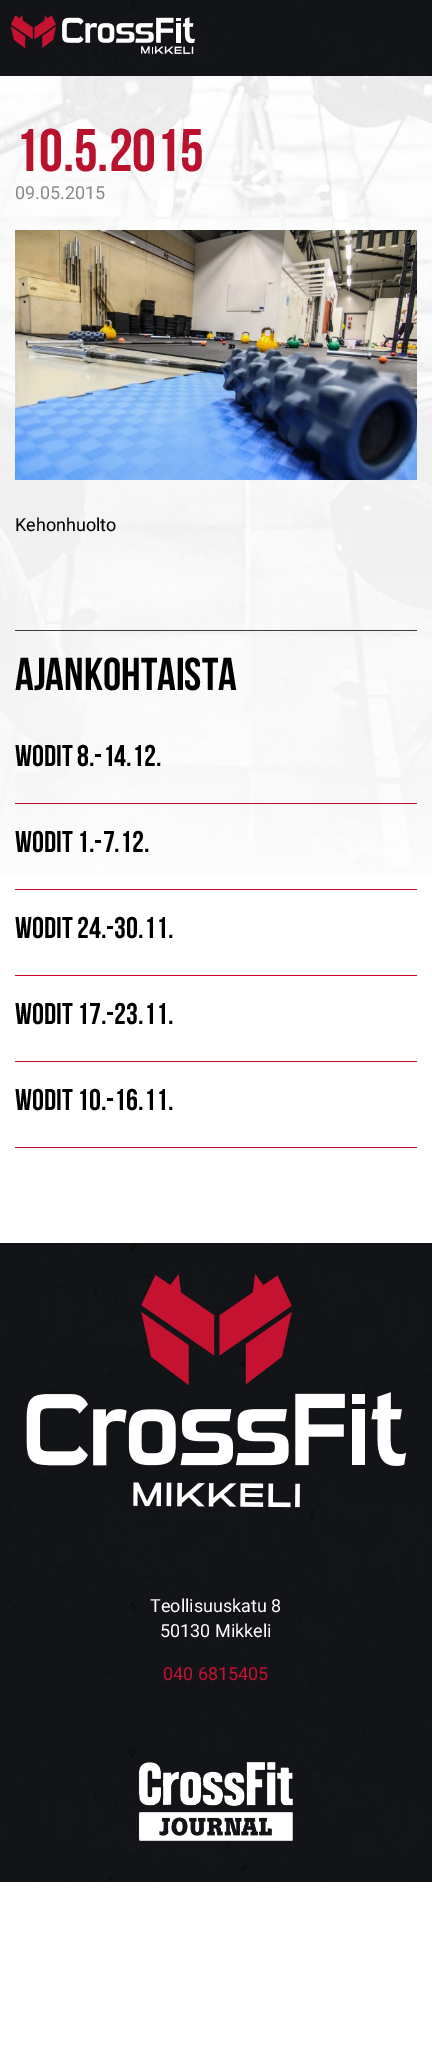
%!PS
<< /PageSize [432 2048] >> setpagedevice
/picture { 5 dict begin { /h /w /y /x /name } { exch def } forall
  gsave x y translate w h scale
  w h 8 [w 0 0 h 0 0] name (r) file false 3 colorimage grestore end } def
0 2048 translate 1 -1 scale
4 setmiterlimit
1 setgray
0 0 432 2048 rectfill
(img1.rgb) 0 0 432 76 picture
(img2.rgb) 11 15 184 39 picture
(img3.rgb) 0 76 432 800 picture
/BebasNeue-Regular [60 0 0 -60 0 0] selectfont
0.722 0.071 0.18 setrgbcolor
15 171 moveto (10.5.2015) show
/Roboto-Regular [18 0 0 -18 0 0] selectfont
0.525 0.541 0.557 setrgbcolor
15 199 moveto (09.05.2015) show
(img4.rgb) 15 230 402 250 picture
0 setgray
15 531 moveto (Kehonhuolto) show
0.216 0.224 0.231 setrgbcolor
15 630 402 1 rectfill
/BebasNeue-Regular [46 0 0 -46 0 0] selectfont
0 setgray
15 690 moveto (AJANKOHTAISTA) show
0.784 0.027 0.153 setrgbcolor
15 803 402 1 rectfill
/BebasNeue-Regular [30 0 0 -30 0 0] selectfont
0 setgray
15 766 moveto (WODIT 8.-14.12.) show
0.784 0.027 0.153 setrgbcolor
15 889 402 1 rectfill
0 setgray
15 852 moveto (WODIT 1.-7.12.) show
0.784 0.027 0.153 setrgbcolor
15 975 402 1 rectfill
0 setgray
15 938 moveto (WODIT 24.-30.11.) show
0.784 0.027 0.153 setrgbcolor
15 1061 402 1 rectfill
0 setgray
15 1024 moveto (WODIT 17.-23.11.) show
0.784 0.027 0.153 setrgbcolor
15 1147 402 1 rectfill
0 setgray
15 1110 moveto (WODIT 10.-16.11.) show
(img5.rgb) 0 1243 432 639 picture
(img6.rgb) 26 1274 381 234 picture
/Roboto-Regular [18 0 0 -18 0 0] selectfont
1 setgray
150 1612 moveto (Teollisuuskatu 8) show
160 1637 moveto (50130 Mikkeli) show
0.769 0.071 0.188 setrgbcolor
163 1680 moveto (040 6815405) show
(img7.rgb) 138 1762 155 79 picture
showpage
